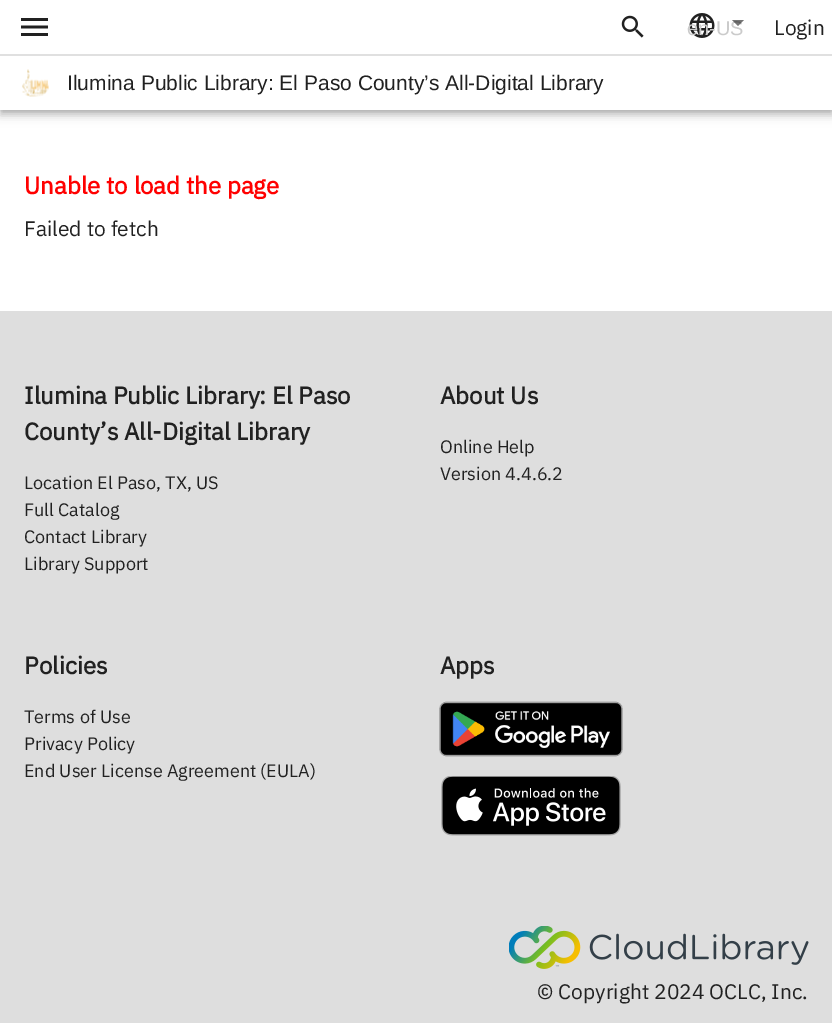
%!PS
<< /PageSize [832 1023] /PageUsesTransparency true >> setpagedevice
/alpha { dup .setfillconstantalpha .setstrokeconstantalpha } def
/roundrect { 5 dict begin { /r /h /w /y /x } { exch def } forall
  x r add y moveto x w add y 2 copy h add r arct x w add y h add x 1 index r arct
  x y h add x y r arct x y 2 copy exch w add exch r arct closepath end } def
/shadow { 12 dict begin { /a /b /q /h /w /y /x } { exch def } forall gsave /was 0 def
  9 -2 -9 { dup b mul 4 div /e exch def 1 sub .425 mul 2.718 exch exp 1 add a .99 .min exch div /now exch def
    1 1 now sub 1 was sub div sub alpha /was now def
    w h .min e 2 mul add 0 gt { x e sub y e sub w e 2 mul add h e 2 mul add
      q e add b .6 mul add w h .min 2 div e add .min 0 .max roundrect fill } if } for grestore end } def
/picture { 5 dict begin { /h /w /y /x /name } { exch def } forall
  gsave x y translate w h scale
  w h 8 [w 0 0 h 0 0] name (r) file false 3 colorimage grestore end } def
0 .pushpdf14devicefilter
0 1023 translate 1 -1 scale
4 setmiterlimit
1 setgray
0 0 832 1023 rectfill
0 setgray
0 2 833 109 0 7.5 0.12 shadow
0 6 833 110 0 4 0.14 shadow
2 5 829 106 0 3 0.2 shadow
1 setgray
0 0 832 110 rectfill
(img1.rgb) 21 18 27 18 picture
(img2.rgb) 621 15 23 23 picture
(img3.rgb) 689 13 26 25 picture
/LiberationSans-Regular [20 0 0 -20 0 0] selectfont
0.796 setgray
687 35 moveto (en-US) show
0.54 alpha
0 setgray
newpath 732 20 moveto 738 26 lineto 744 20 lineto closepath fill
/IBMPlexSans-Regular [21 0 0 -21 0 0] selectfont
1 alpha
0.129 setgray
774 35 moveto (Login) show
0.878 setgray
0 54 832 2 rectfill
(img4.rgb) 22 69 27 28 picture
/LiberationSans-Regular [21 0 0 -21 0 0] selectfont
0.129 setgray
67 90 moveto (Ilumina Public Library: El Paso County’s All-Digital Library) show
/IBMPlexSans-Bold [24 0 0 -24 0 0] selectfont
1 0 0 setrgbcolor
24 194 moveto (Unable to load the page) show
/IBMPlexSans-Regular [21 0 0 -21 0 0] selectfont
0.129 setgray
24 236 moveto (Failed to fetch) show
0.871 setgray
0 311 832 712 rectfill
/IBMPlexSans-Bold [24 0 0 -24 0 0] selectfont
0.129 setgray
24 404 moveto (Ilumina Public Library: El Paso) show
24 440 moveto (County’s All-Digital Library) show
/IBMPlexSans-Regular [18 0 0 -18 0 0] selectfont
24 489 moveto (Location El Paso, TX, US) show
24 516 moveto (Full Catalog) show
24 543 moveto (Contact Library) show
24 570 moveto (Library Support) show
/IBMPlexSans-Bold [24 0 0 -24 0 0] selectfont
440 404 moveto (About Us) show
/IBMPlexSans-Regular [18 0 0 -18 0 0] selectfont
440 453 moveto (Online Help) show
440 480 moveto (Version 4.4.6.2) show
/IBMPlexSans-Bold [24 0 0 -24 0 0] selectfont
24 674 moveto (Policies) show
/IBMPlexSans-Regular [18 0 0 -18 0 0] selectfont
24 723 moveto (Terms of Use) show
24 750 moveto (Privacy Policy) show
24 777 moveto (End User License Agreement \(EULA\)) show
/IBMPlexSans-Bold [24 0 0 -24 0 0] selectfont
440 674 moveto (Apps) show
(img5.rgb) 439 701 184 56 picture
(img6.rgb) 441 776 180 60 picture
(img7.rgb) 509 926 300 43 picture
/IBMPlexSans-Regular [21 0 0 -21 0 0] selectfont
537 999 moveto (© Copyright 2024 OCLC, Inc.) show
.poppdf14devicefilter showpage
